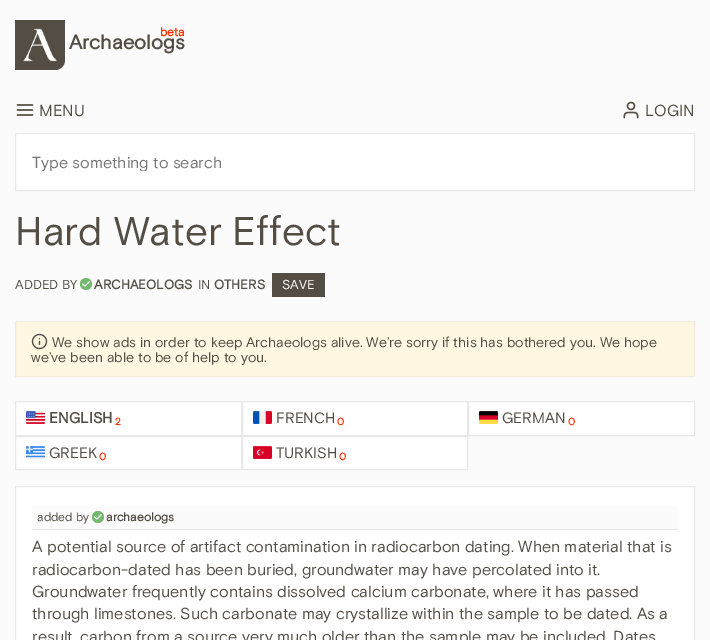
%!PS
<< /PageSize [710 640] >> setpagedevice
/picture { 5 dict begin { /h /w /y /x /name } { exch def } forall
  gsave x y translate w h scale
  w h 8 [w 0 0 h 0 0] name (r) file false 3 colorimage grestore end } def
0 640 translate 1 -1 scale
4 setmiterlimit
0.984 setgray
0 0 710 640 rectfill
0.329 0.302 0.267 setrgbcolor
newpath 15 20 moveto 65 20 lineto 65 60 lineto 65 65.5 60.5 70 55 70 curveto 15 70 lineto closepath fill
(img1.rgb) 23 28 34 34 picture
/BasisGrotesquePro-Bold [12 0 0 -12 0 0] selectfont
1 0.184 0 setrgbcolor
160 36 moveto (beta) show
/BasisGrotesquePro-Bold [20 0 0 -20 0 0] selectfont
0.325 0.302 0.267 setrgbcolor
69 49 moveto (Archaeologs) show
(img2.rgb) 16 104 18 12 picture
/BasisGrotesquePro-Regular [16 0 0 -16 0 0] selectfont
39 116 moveto (MENU) show
(img3.rgb) 623 101 16 18 picture
645 116 moveto (LOGIN) show
1 setgray
newpath 15.5 133.5 moveto 694.5 133.5 lineto 694.5 190.5 lineto 15.5 190.5 lineto closepath gsave fill grestore
0.914 setgray
stroke
gsave
32 153 646 18 rectclip
0.459 setgray
32 168 moveto (Type something to search) show
grestore
/BasisGrotesquePro-Regular [40 0 0 -40 0 0] selectfont
0.325 0.302 0.267 setrgbcolor
15 245 moveto (Hard Water Effect) show
/BasisGrotesquePro-Regular [13 0 0 -13 0 0] selectfont
15 289 moveto (ADDED BY) show
0.451 0.725 0.431 setrgbcolor
newpath 86 284 6 0 360 arc closepath fill
/BasisGrotesquePro-Bold [13 0 0 -13 0 0] selectfont
0.325 0.302 0.267 setrgbcolor
94 289 moveto (ARCHAEOLOGS) show
1 setgray
0.8 setlinewidth
1 setlinecap
1 setlinejoin
newpath 89.5 281.5 moveto 85 286 lineto 82.5 284 lineto stroke
/BasisGrotesquePro-Regular [13 0 0 -13 0 0] selectfont
0.325 0.302 0.267 setrgbcolor
198 289 moveto (IN) show
/BasisGrotesquePro-Bold [13 0 0 -13 0 0] selectfont
214 289 moveto (OTHERS) show
272 273 53 24 rectfill
/BasisGrotesquePro-Regular [13 0 0 -13 0 0] selectfont
1 setgray
282 289 moveto (SAVE) show
1 0.969 0.886 setrgbcolor
newpath 15.5 321.5 moveto 694.5 321.5 lineto 694.5 376.5 lineto 15.5 376.5 lineto closepath gsave fill grestore
0.945 0.925 0.878 setrgbcolor
1 setlinewidth
0 setlinecap
0 setlinejoin
stroke
(img4.rgb) 31 333 17 17 picture
/BasisGrotesquePro-Regular [14 0 0 -14 0 0] selectfont
0.325 0.302 0.267 setrgbcolor
52 347 moveto (We show ads in order to keep Archaeologs alive. We’re sorry if this has bothered you. We hope) show
31 362 moveto (we’ve been able to be of help to you.) show
1 setgray
newpath 15.5 401.5 moveto 241.5 401.5 lineto 241.5 435.5 lineto 15.5 435.5 lineto closepath gsave fill grestore
0.91 setgray
stroke
(img5.rgb) 26 411 19 13 picture
/BasisGrotesquePro-Bold [15 0 0 -15 0 0] selectfont
0.325 0.302 0.267 setrgbcolor
49 423 moveto (ENGLISH) show
/BasisGrotesquePro-Bold [10 0 0 -10 0 0] selectfont
1 0.184 0 setrgbcolor
115 425 moveto (2) show
1 setgray
newpath 242.5 401.5 moveto 467.5 401.5 lineto 467.5 435.5 lineto 242.5 435.5 lineto closepath gsave fill grestore
0.91 setgray
stroke
(img6.rgb) 253 411 19 13 picture
/BasisGrotesquePro-Regular [15 0 0 -15 0 0] selectfont
0.325 0.302 0.267 setrgbcolor
276 423 moveto (FRENCH) show
/BasisGrotesquePro-Bold [10 0 0 -10 0 0] selectfont
1 0.184 0 setrgbcolor
337 425 moveto (0) show
1 setgray
newpath 468.5 401.5 moveto 694.5 401.5 lineto 694.5 435.5 lineto 468.5 435.5 lineto closepath gsave fill grestore
0.91 setgray
stroke
(img7.rgb) 479 411 19 13 picture
/BasisGrotesquePro-Regular [15 0 0 -15 0 0] selectfont
0.325 0.302 0.267 setrgbcolor
502 423 moveto (GERMAN) show
/BasisGrotesquePro-Bold [10 0 0 -10 0 0] selectfont
1 0.184 0 setrgbcolor
568 425 moveto (0) show
1 setgray
newpath 15.5 436.5 moveto 241.5 436.5 lineto 241.5 469.5 lineto 15.5 469.5 lineto closepath gsave fill grestore
0.91 setgray
stroke
(img8.rgb) 26 446 19 13 picture
/BasisGrotesquePro-Regular [15 0 0 -15 0 0] selectfont
0.325 0.302 0.267 setrgbcolor
49 458 moveto (GREEK) show
/BasisGrotesquePro-Bold [10 0 0 -10 0 0] selectfont
1 0.184 0 setrgbcolor
99 460 moveto (0) show
1 setgray
newpath 242.5 436.5 moveto 467.5 436.5 lineto 467.5 469.5 lineto 242.5 469.5 lineto closepath gsave fill grestore
0.91 setgray
stroke
(img9.rgb) 253 446 19 13 picture
/BasisGrotesquePro-Regular [15 0 0 -15 0 0] selectfont
0.325 0.302 0.267 setrgbcolor
276 458 moveto (TURKISH) show
/BasisGrotesquePro-Bold [10 0 0 -10 0 0] selectfont
1 0.184 0 setrgbcolor
339 460 moveto (0) show
1 setgray
newpath 15.5 486.5 moveto 694.5 486.5 lineto 694.5 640.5 lineto 15.5 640.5 lineto closepath gsave fill grestore
0.914 setgray
stroke
0.984 setgray
32 506 646 23 rectfill
0.91 setgray
32 529 646 1 rectfill
/BasisGrotesquePro-Regular [12 0 0 -12 0 0] selectfont
0.325 0.302 0.267 setrgbcolor
37 521 moveto (added by) show
0.451 0.725 0.431 setrgbcolor
newpath 98 517 6 0 360 arc closepath fill
/BasisGrotesquePro-Bold [12 0 0 -12 0 0] selectfont
0.325 0.302 0.267 setrgbcolor
106 521 moveto (archaeologs) show
1 setgray
0.8 setlinewidth
1 setlinecap
1 setlinejoin
newpath 101.5 514.5 moveto 97 519 lineto 94.5 517 lineto stroke
/BasisGrotesquePro-Regular [16 0 0 -16 0 0] selectfont
0.325 0.302 0.267 setrgbcolor
32 552 moveto (A potential source of artifact contamination in radiocarbon dating. When material that is) show
32 575 moveto (radiocarbon-dated has been buried, groundwater may have percolated into it.) show
32 597 moveto (Groundwater frequently contains dissolved calcium carbonate, where it has passed) show
32 619 moveto (through limestones. Such carbonate may crystallize within the sample to be dated. As a) show
32 642 moveto (result, carbon from a source very much older than the sample may be included. Dates) show
showpage
